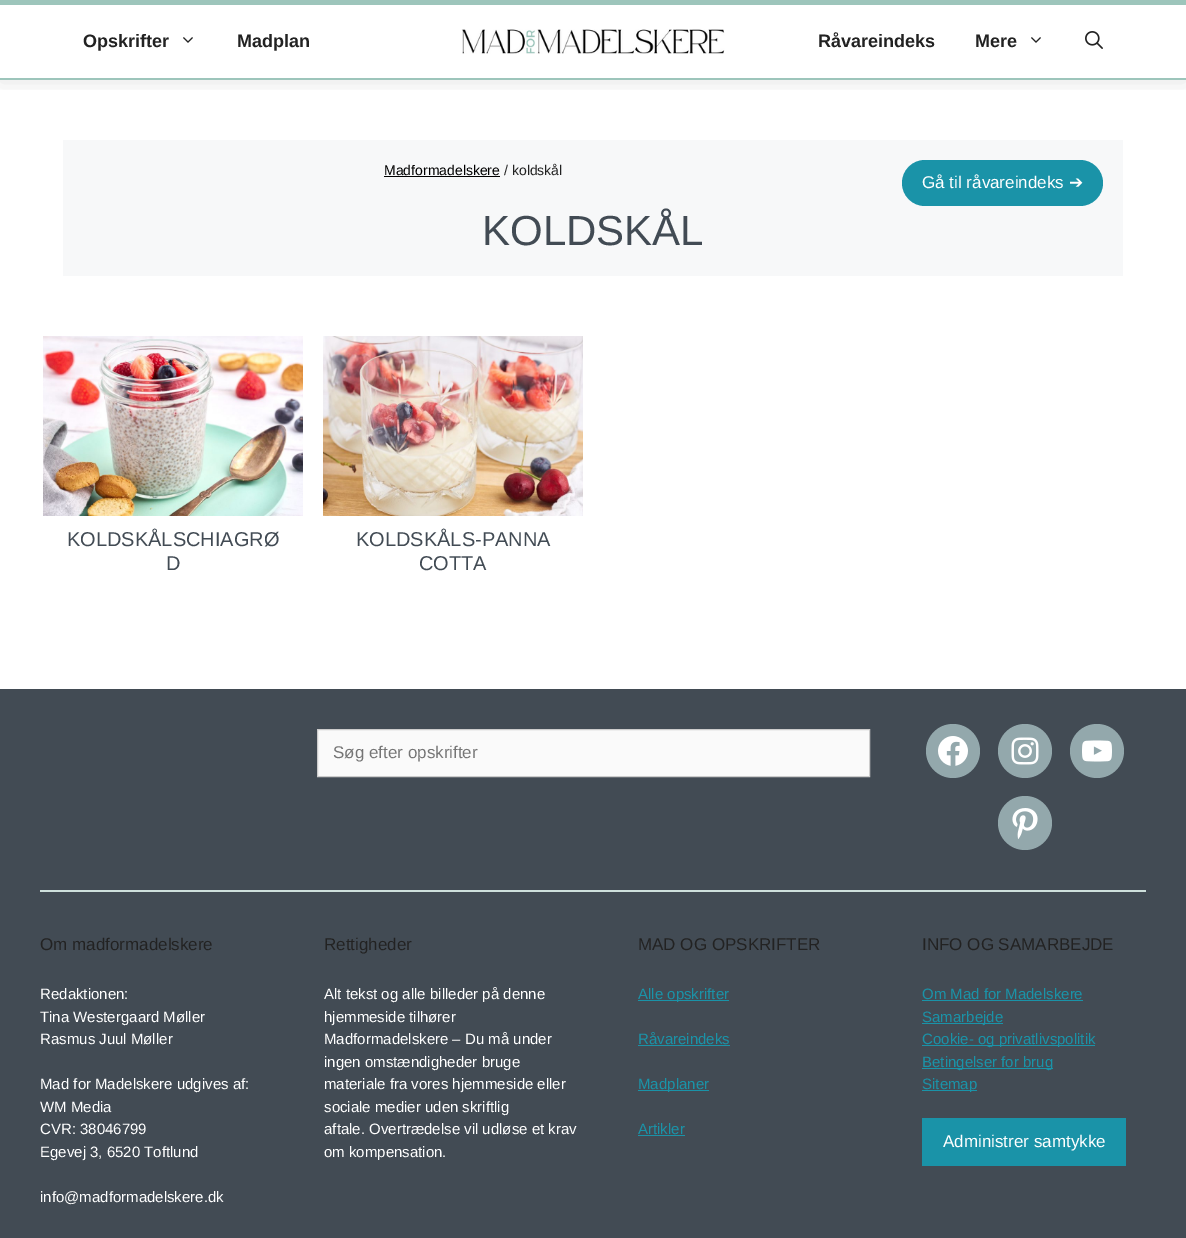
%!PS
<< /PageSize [1186 1238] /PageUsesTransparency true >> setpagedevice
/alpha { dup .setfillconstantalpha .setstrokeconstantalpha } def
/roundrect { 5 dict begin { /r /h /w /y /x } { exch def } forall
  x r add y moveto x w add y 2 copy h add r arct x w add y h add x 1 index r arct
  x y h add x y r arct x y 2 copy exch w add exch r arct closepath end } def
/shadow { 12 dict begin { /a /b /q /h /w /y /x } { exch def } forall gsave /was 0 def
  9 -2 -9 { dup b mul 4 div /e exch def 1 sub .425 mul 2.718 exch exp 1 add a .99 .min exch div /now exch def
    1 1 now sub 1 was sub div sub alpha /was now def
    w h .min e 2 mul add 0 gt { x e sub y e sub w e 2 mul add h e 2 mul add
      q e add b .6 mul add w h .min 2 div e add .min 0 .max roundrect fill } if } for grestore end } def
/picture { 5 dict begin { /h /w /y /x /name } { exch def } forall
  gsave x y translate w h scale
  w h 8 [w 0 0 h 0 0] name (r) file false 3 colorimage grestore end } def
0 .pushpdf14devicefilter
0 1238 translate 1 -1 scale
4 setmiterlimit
1 setgray
0 0 1186 1238 rectfill
gsave
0 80 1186 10 rectclip
0 setgray
0 2 1186 80 0 10 0.1 shadow
grestore
0.616 0.773 0.733 setrgbcolor
0 0 1186 5 rectfill
0 78 1186 2 rectfill
(img1.rgb) 461 29 264 25 picture
(img2.rgb) 1085 31 18 18 picture
/LiberationSans-Bold [18 0 0 -18 0 0] selectfont
0.133 setgray
83 47 moveto (Opskrifter) show
(img3.rgb) 183 37 10 6 picture
237 47 moveto (Madplan) show
818 47 moveto (Råvareindeks) show
975 47 moveto (Mere) show
(img3.rgb) 1031 37 10 6 picture
0.969 0.973 0.976 setrgbcolor
63 140 1060 136 rectfill
/LiberationSans-Regular [14 0 0 -14 0 0] selectfont
0 setgray
384 175 moveto (Madformadelskere) show
384 176 116 1 rectfill
0.133 setgray
504 175 moveto (/ koldskål) show
0.102 0.576 0.659 setrgbcolor
902 160 201 46 23 roundrect fill
/LiberationSans-Regular [17 0 0 -17 0 0] selectfont
1 setgray
922 188 moveto (Gå til råvareindeks) show
/DejaVuSans-Regular [17 0 0 -17 0 0] selectfont
1069 188 moveto (➔) show
/LiberationSans-Regular [42 0 0 -42 0 0] selectfont
0.259 0.294 0.329 setrgbcolor
482 245 moveto (KOLDSKÅL) show
(img4.rgb) 43 336 260 180 picture
/LiberationSans-Regular [20 0 0 -20 0 0] selectfont
67 546 moveto (KOLDSKÅLSCHIAGRØ) show
166 570 moveto (D) show
(img5.rgb) 323 336 260 180 picture
356 546 moveto (KOLDSKÅLS-PANNA) show
419 570 moveto (COTTA) show
0 689 1186 549 rectfill
0.98 setgray
newpath 317.5 729.5 moveto 869.5 729.5 lineto 869.5 776.5 lineto 317.5 776.5 lineto closepath gsave fill grestore
0.8 setgray
stroke
/LiberationSans-Regular [17 0 0 -17 0 0] selectfont
0.459 setgray
333 758 moveto (Søg efter opskrifter) show
0.576 0.659 0.675 setrgbcolor
newpath 953 751 27 0 360 arc closepath fill
(img6.rgb) 938 736 30 30 picture
newpath 1025 751 27 0 360 arc closepath fill
(img7.rgb) 1011 737 28 28 picture
newpath 1097 751 27 0 360 arc closepath fill
(img8.rgb) 1082 740 30 22 picture
newpath 1025 823 27 0 360 arc closepath fill
(img9.rgb) 1012 808 26 31 picture
0.808 0.878 0.863 setrgbcolor
40 890 1106 2 rectfill
0.133 setgray
40 950 moveto (Om madformadelskere) show
/LiberationSans-Regular [15 0 0 -15 0 0] selectfont
1 setgray
40 999 moveto (Redaktionen:) show
40 1022 moveto (Tina Westergaard Møller) show
40 1044 moveto (Rasmus Juul Møller) show
40 1089 moveto (Mad for Madelskere udgives af:) show
40 1112 moveto (WM Media) show
40 1134 moveto (CVR: 38046799) show
40 1157 moveto (Egevej 3, 6520 Toftlund) show
40 1202 moveto (info@madformadelskere.dk) show
/LiberationSans-Regular [17 0 0 -17 0 0] selectfont
0.133 setgray
324 950 moveto (Rettigheder) show
/LiberationSans-Regular [15 0 0 -15 0 0] selectfont
1 setgray
324 999 moveto (Alt tekst og alle billeder på denne) show
324 1022 moveto (hjemmeside tilhører) show
324 1044 moveto (Madformadelskere – Du må under) show
324 1067 moveto (ingen omstændigheder bruge) show
324 1089 moveto (materiale fra vores hjemmeside eller) show
324 1112 moveto (sociale medier uden skriftlig) show
324 1134 moveto (aftale. Overtrædelse vil udløse et krav) show
324 1157 moveto (om kompensation.) show
/LiberationSans-Regular [17 0 0 -17 0 0] selectfont
0.133 setgray
638 950 moveto (MAD OG OPSKRIFTER) show
0.102 0.576 0.659 setrgbcolor
638 1000 91 1 rectfill
/LiberationSans-Regular [15 0 0 -15 0 0] selectfont
638 999 moveto (Alle opskrifter) show
638 1044 moveto (Råvareindeks) show
638 1045 92 1 rectfill
638 1090 71 1 rectfill
638 1089 moveto (Madplaner) show
638 1134 moveto (Artikler) show
638 1135 47 1 rectfill
/LiberationSans-Regular [17 0 0 -17 0 0] selectfont
0.133 setgray
922 950 moveto (INFO OG SAMARBEJDE) show
/LiberationSans-Regular [15 0 0 -15 0 0] selectfont
0.102 0.576 0.659 setrgbcolor
922 999 moveto (Om Mad for Madelskere) show
922 1000 161 1 rectfill
922 1023 81 1 rectfill
922 1022 moveto (Samarbejde) show
922 1045 173 1 rectfill
922 1044 moveto (Cookie- og privatlivspolitik) show
922 1068 131 1 rectfill
922 1067 moveto (Betingelser for brug) show
922 1090 55 1 rectfill
922 1089 moveto (Sitemap) show
922 1118 204 48 rectfill
/LiberationSans-Regular [17 0 0 -17 0 0] selectfont
1 setgray
943 1147 moveto (Administrer samtykke) show
.poppdf14devicefilter showpage
